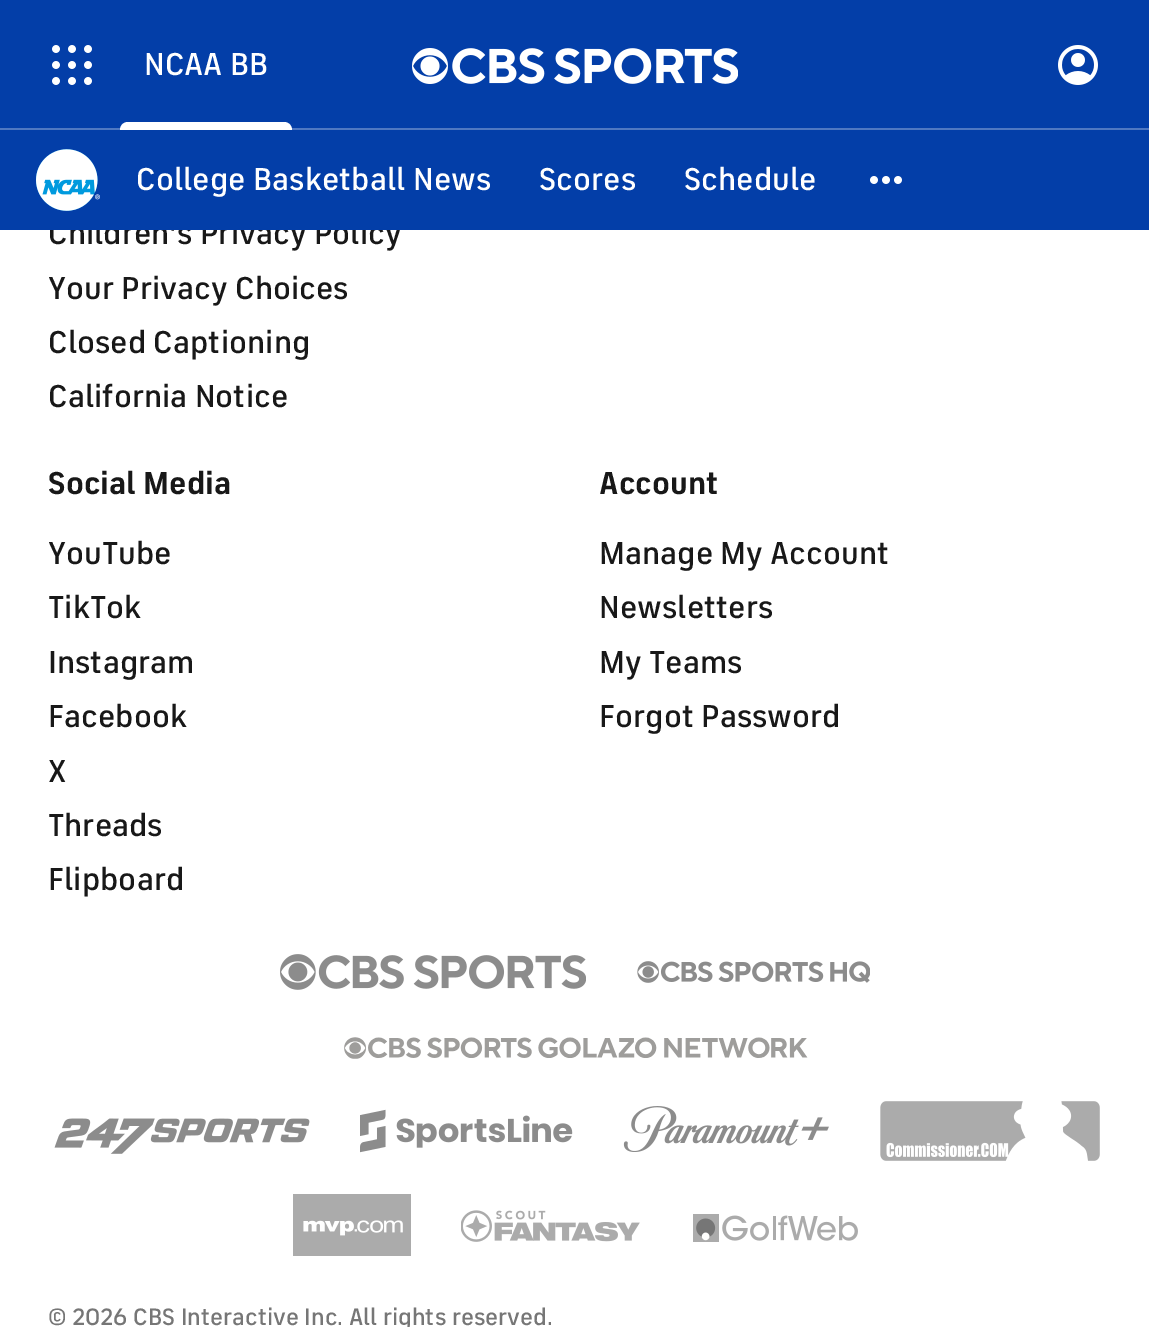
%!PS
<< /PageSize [1149 1327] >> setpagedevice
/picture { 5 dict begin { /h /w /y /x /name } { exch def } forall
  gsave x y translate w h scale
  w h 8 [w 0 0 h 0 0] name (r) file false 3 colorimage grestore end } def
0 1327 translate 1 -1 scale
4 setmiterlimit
1 setgray
0 0 1149 1327 rectfill
0.012 0.243 0.659 setrgbcolor
0 0 1149 128 rectfill
0.31 0.471 0.761 setrgbcolor
0 128 1149 2 rectfill
(img1.rgb) 52 45 40 40 picture
/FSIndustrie-Medium [32 0 0 -32 0 0] selectfont
1 setgray
144 75 moveto (NCAA BB) show
newpath 128 122 moveto 284 122 lineto 288.5 122 292 125.5 292 130 curveto 120 130 lineto 120 125.5 123.5 122 128 122 curveto closepath fill
(img2.rgb) 412 48 36 36 picture
(img3.rgb) 452 48 286 36 picture
(img4.rgb) 1058 45 40 40 picture
0.094 setgray
48 244 moveto (Children's Privacy Policy) show
0.012 0.243 0.659 setrgbcolor
0 130 1149 100 rectfill
(img5.rgb) 36 149 64 62 picture
1 setgray
136 190 moveto (College Basketball News) show
539 190 moveto (Scores) show
684 190 moveto (Schedule) show
(img6.rgb) 870 176 32 8 picture
0.094 setgray
48 299 moveto (Your Privacy Choices) show
48 353 moveto (Closed Captioning) show
48 407 moveto (California Notice) show
/FSIndustrie-Bold [32 0 0 -32 0 0] selectfont
48 494 moveto (Social Media) show
/FSIndustrie-Medium [32 0 0 -32 0 0] selectfont
48 564 moveto (YouTube) show
48 618 moveto (TikTok) show
48 673 moveto (Instagram) show
48 727 moveto (Facebook) show
48 782 moveto (X) show
48 836 moveto (Threads) show
48 890 moveto (Flipboard) show
/FSIndustrie-Bold [32 0 0 -32 0 0] selectfont
599 494 moveto (Account) show
/FSIndustrie-Medium [32 0 0 -32 0 0] selectfont
599 564 moveto (Manage My Account) show
599 618 moveto (Newsletters) show
599 673 moveto (My Teams) show
599 727 moveto (Forgot Password) show
(img7.rgb) 280 954 306 36 picture
(img8.rgb) 637 961 233 22 picture
(img9.rgb) 344 1037 464 22 picture
(img10.rgb) 54 1118 256 36 picture
(img11.rgb) 360 1109 213 44 picture
(img12.rgb) 623 1106 206 46 picture
(img13.rgb) 880 1101 220 60 picture
(img14.rgb) 293 1194 118 62 picture
(img15.rgb) 461 1210 179 32 picture
(img16.rgb) 693 1214 165 28 picture
/FSIndustrie-Medium [24 0 0 -24 0 0] selectfont
0.463 setgray
48 1325 moveto (© 2026 CBS Interactive Inc. All rights reserved.) show
showpage
